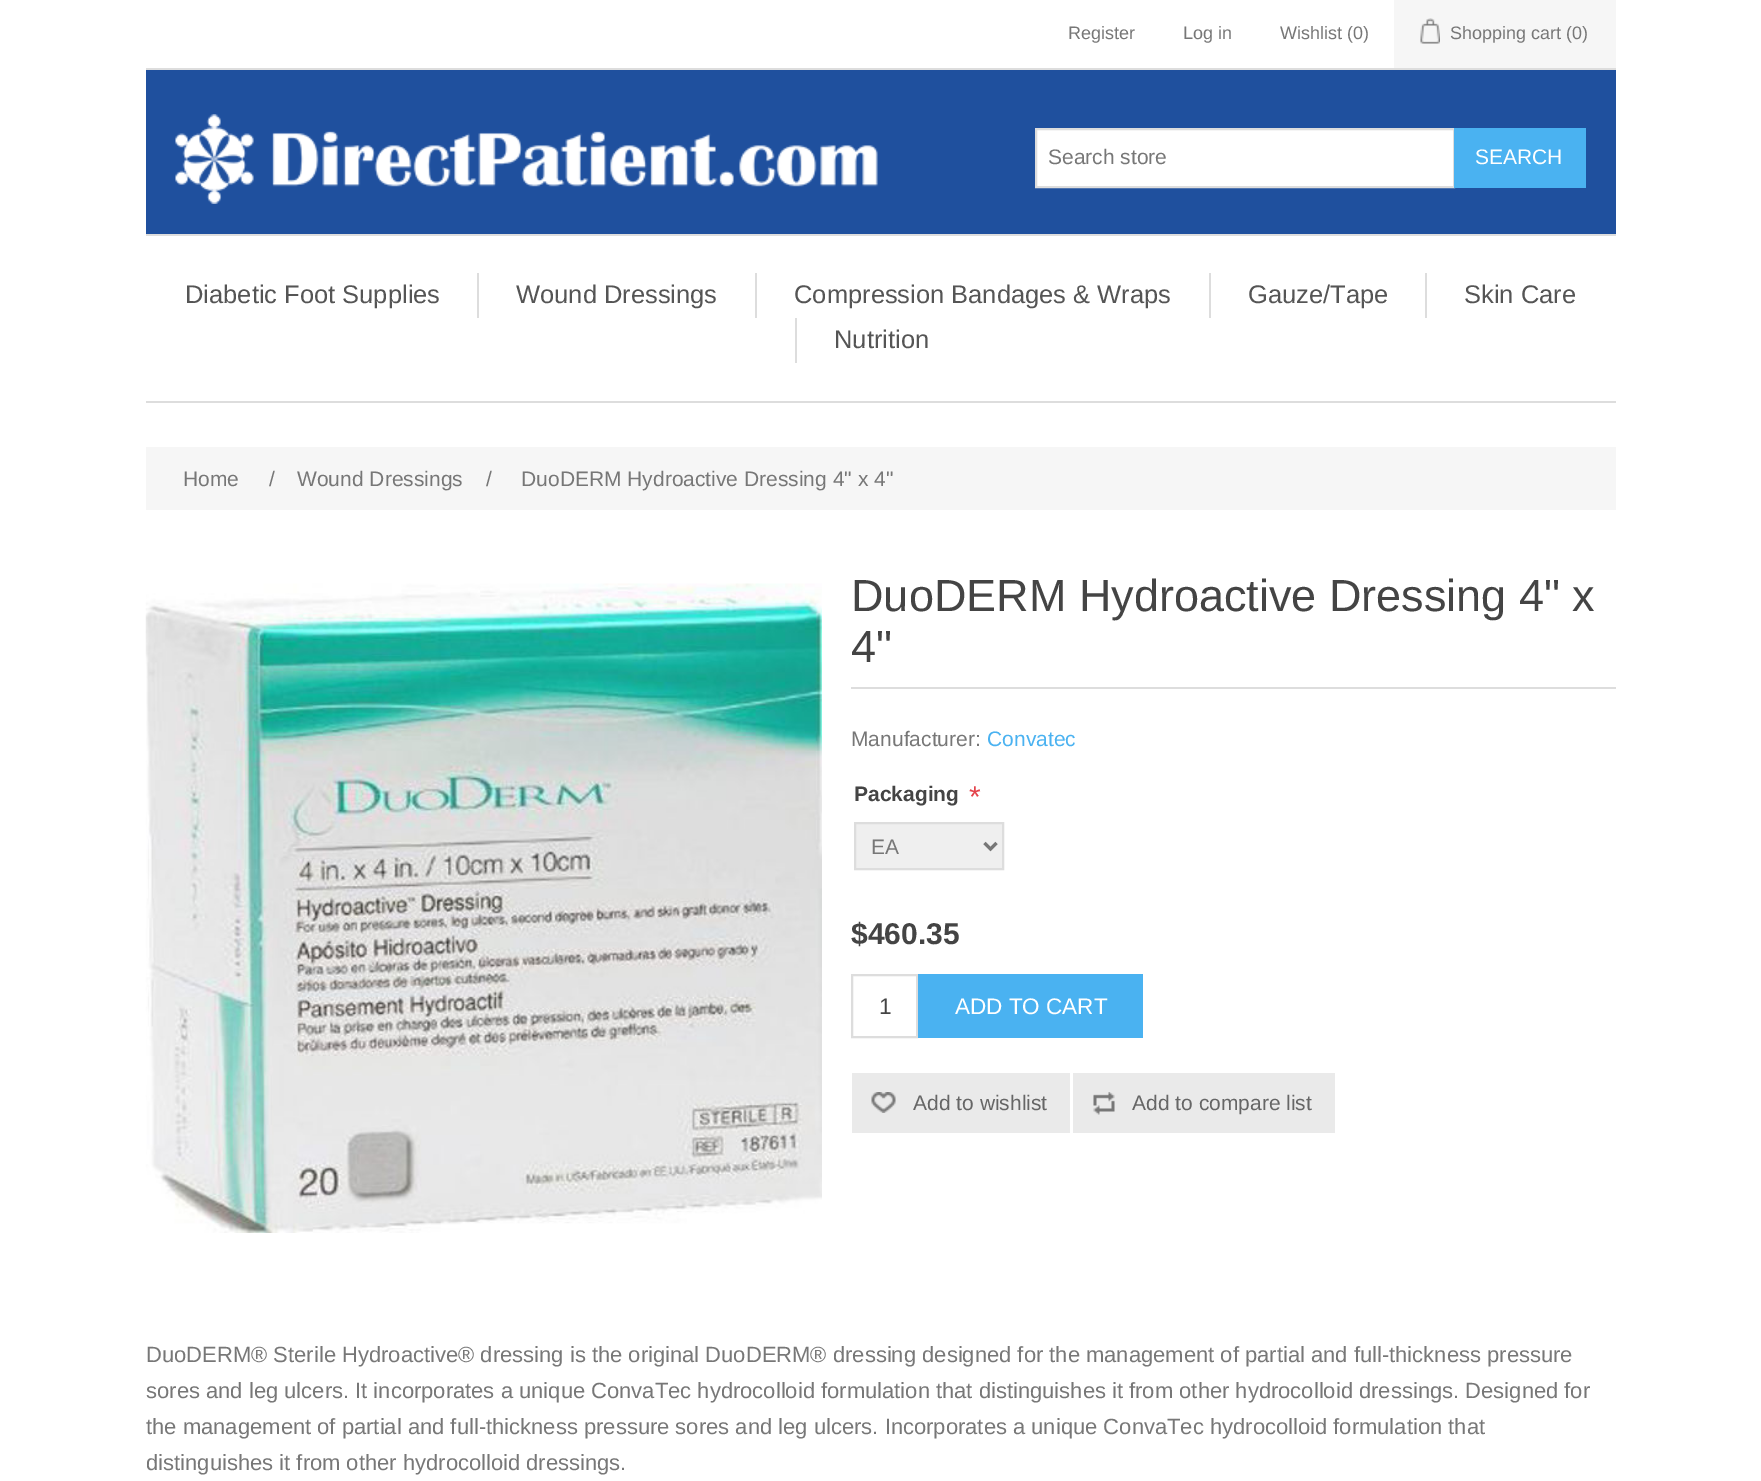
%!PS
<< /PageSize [1761 1481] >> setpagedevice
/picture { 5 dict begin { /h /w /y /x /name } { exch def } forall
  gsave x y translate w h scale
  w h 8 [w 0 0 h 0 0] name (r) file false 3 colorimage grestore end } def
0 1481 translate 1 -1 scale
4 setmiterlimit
1 setgray
0 0 1761 1481 rectfill
0.867 setgray
146 68 1470 2 rectfill
/LiberationSans-Regular [18 0 0 -18 0 0] selectfont
0.467 setgray
1068 39 moveto (Register) show
1183 39 moveto (Log in) show
1280 39 moveto (Wishlist \(0\)) show
0.965 setgray
1394 0 222 68 rectfill
(img1.rgb) 1420 18 20 26 picture
0.467 setgray
1450 39 moveto (Shopping cart \(0\)) show
0.122 0.314 0.62 setrgbcolor
146 70 1470 164 rectfill
(img2.rgb) 175 114 703 90 picture
1 setgray
newpath 1036 129 moveto 1454 129 lineto 1454 187 lineto 1036 187 lineto closepath gsave fill grestore
0.867 setgray
2 setlinewidth
stroke
/LiberationSans-Regular [21 0 0 -21 0 0] selectfont
0.467 setgray
1048 164 moveto (Search store) show
0.29 0.698 0.945 setrgbcolor
1454 128 132 60 rectfill
1 setgray
1475 164 moveto (SEARCH) show
0.867 setgray
146 234 1470 2 rectfill
146 401 1470 2 rectfill
/LiberationSans-Regular [25.5 0 0 -25.5 0 0] selectfont
0.333 setgray
185 303 moveto (Diabetic Foot Supplies) show
0.867 setgray
477 273 2 45 rectfill
0.333 setgray
516 303 moveto (Wound Dressings) show
0.867 setgray
755 273 2 45 rectfill
0.333 setgray
794 303 moveto (Compression Bandages & Wraps) show
0.867 setgray
1209 273 2 45 rectfill
0.333 setgray
1248 303 moveto (Gauze/Tape) show
0.867 setgray
1425 273 2 45 rectfill
0.333 setgray
1464 303 moveto (Skin Care) show
0.867 setgray
795 318 2 45 rectfill
0.333 setgray
834 348 moveto (Nutrition) show
0.965 setgray
146 447 1470 63 rectfill
/LiberationSans-Regular [21 0 0 -21 0 0] selectfont
0.467 setgray
183 486 moveto (Home) show
269 486 moveto (/) show
297 486 moveto (Wound Dressings) show
486 486 moveto (/) show
521 486 moveto (DuoDERM Hydroactive Dressing 4" x 4") show
(img3.rgb) 145 583 677 650 picture
0.867 setgray
851 687 765 2 rectfill
/LiberationSans-Regular [45 0 0 -45 0 0] selectfont
0.267 setgray
851 611 moveto (DuoDERM Hydroactive Dressing 4" x) show
851 662 moveto (4") show
/LiberationSans-Regular [21 0 0 -21 0 0] selectfont
0.467 setgray
851 746 moveto (Manufacturer:) show
0.29 0.698 0.945 setrgbcolor
987 746 moveto (Convatec) show
/LiberationSans-Bold [21 0 0 -21 0 0] selectfont
0.267 setgray
854 801 moveto (Packaging) show
/LiberationSans-Regular [30 0 0 -30 0 0] selectfont
0.894 0.263 0.294 setrgbcolor
969 807 moveto (*) show
0.937 setgray
newpath 855 823 moveto 1003 823 lineto 1003 869 lineto 855 869 lineto closepath gsave fill grestore
0.867 setgray
stroke
0.467 setgray
3 setlinewidth
newpath 984.5 843 moveto 990.5 849 lineto 996.5 843 lineto stroke
/LiberationSans-Regular [21 0 0 -21 0 0] selectfont
871 854 moveto (EA) show
/LiberationSans-Bold [30 0 0 -30 0 0] selectfont
0.267 setgray
851 944 moveto ($460.35) show
0.867 setgray
2 setlinewidth
852 975 65 62 rectstroke
/LiberationSans-Regular [22.5 0 0 -22.5 0 0] selectfont
0.267 setgray
879 1014 moveto (1) show
0.29 0.698 0.945 setrgbcolor
918 974 225 64 rectfill
1 setgray
955 1014 moveto (ADD TO CART) show
0.918 setgray
852 1073 218 60 rectfill
(img4.rgb) 871 1092 25 21 picture
/LiberationSans-Regular [21 0 0 -21 0 0] selectfont
0.4 setgray
913 1110 moveto (Add to wishlist) show
0.918 setgray
1073 1073 262 60 rectfill
(img5.rgb) 1093 1092 22 23 picture
0.4 setgray
1132 1110 moveto (Add to compare list) show
/LiberationSans-Regular [22 0 0 -22 0 0] selectfont
0.467 setgray
146 1362 moveto (DuoDERM® Sterile Hydroactive® dressing is the original DuoDERM® dressing designed for the management of partial and full-thickness pressure) show
146 1398 moveto (sores and leg ulcers. It incorporates a unique ConvaTec hydrocolloid formulation that distinguishes it from other hydrocolloid dressings. Designed for) show
146 1434 moveto (the management of partial and full-thickness pressure sores and leg ulcers. Incorporates a unique ConvaTec hydrocolloid formulation that) show
146 1470 moveto (distinguishes it from other hydrocolloid dressings.) show
showpage
